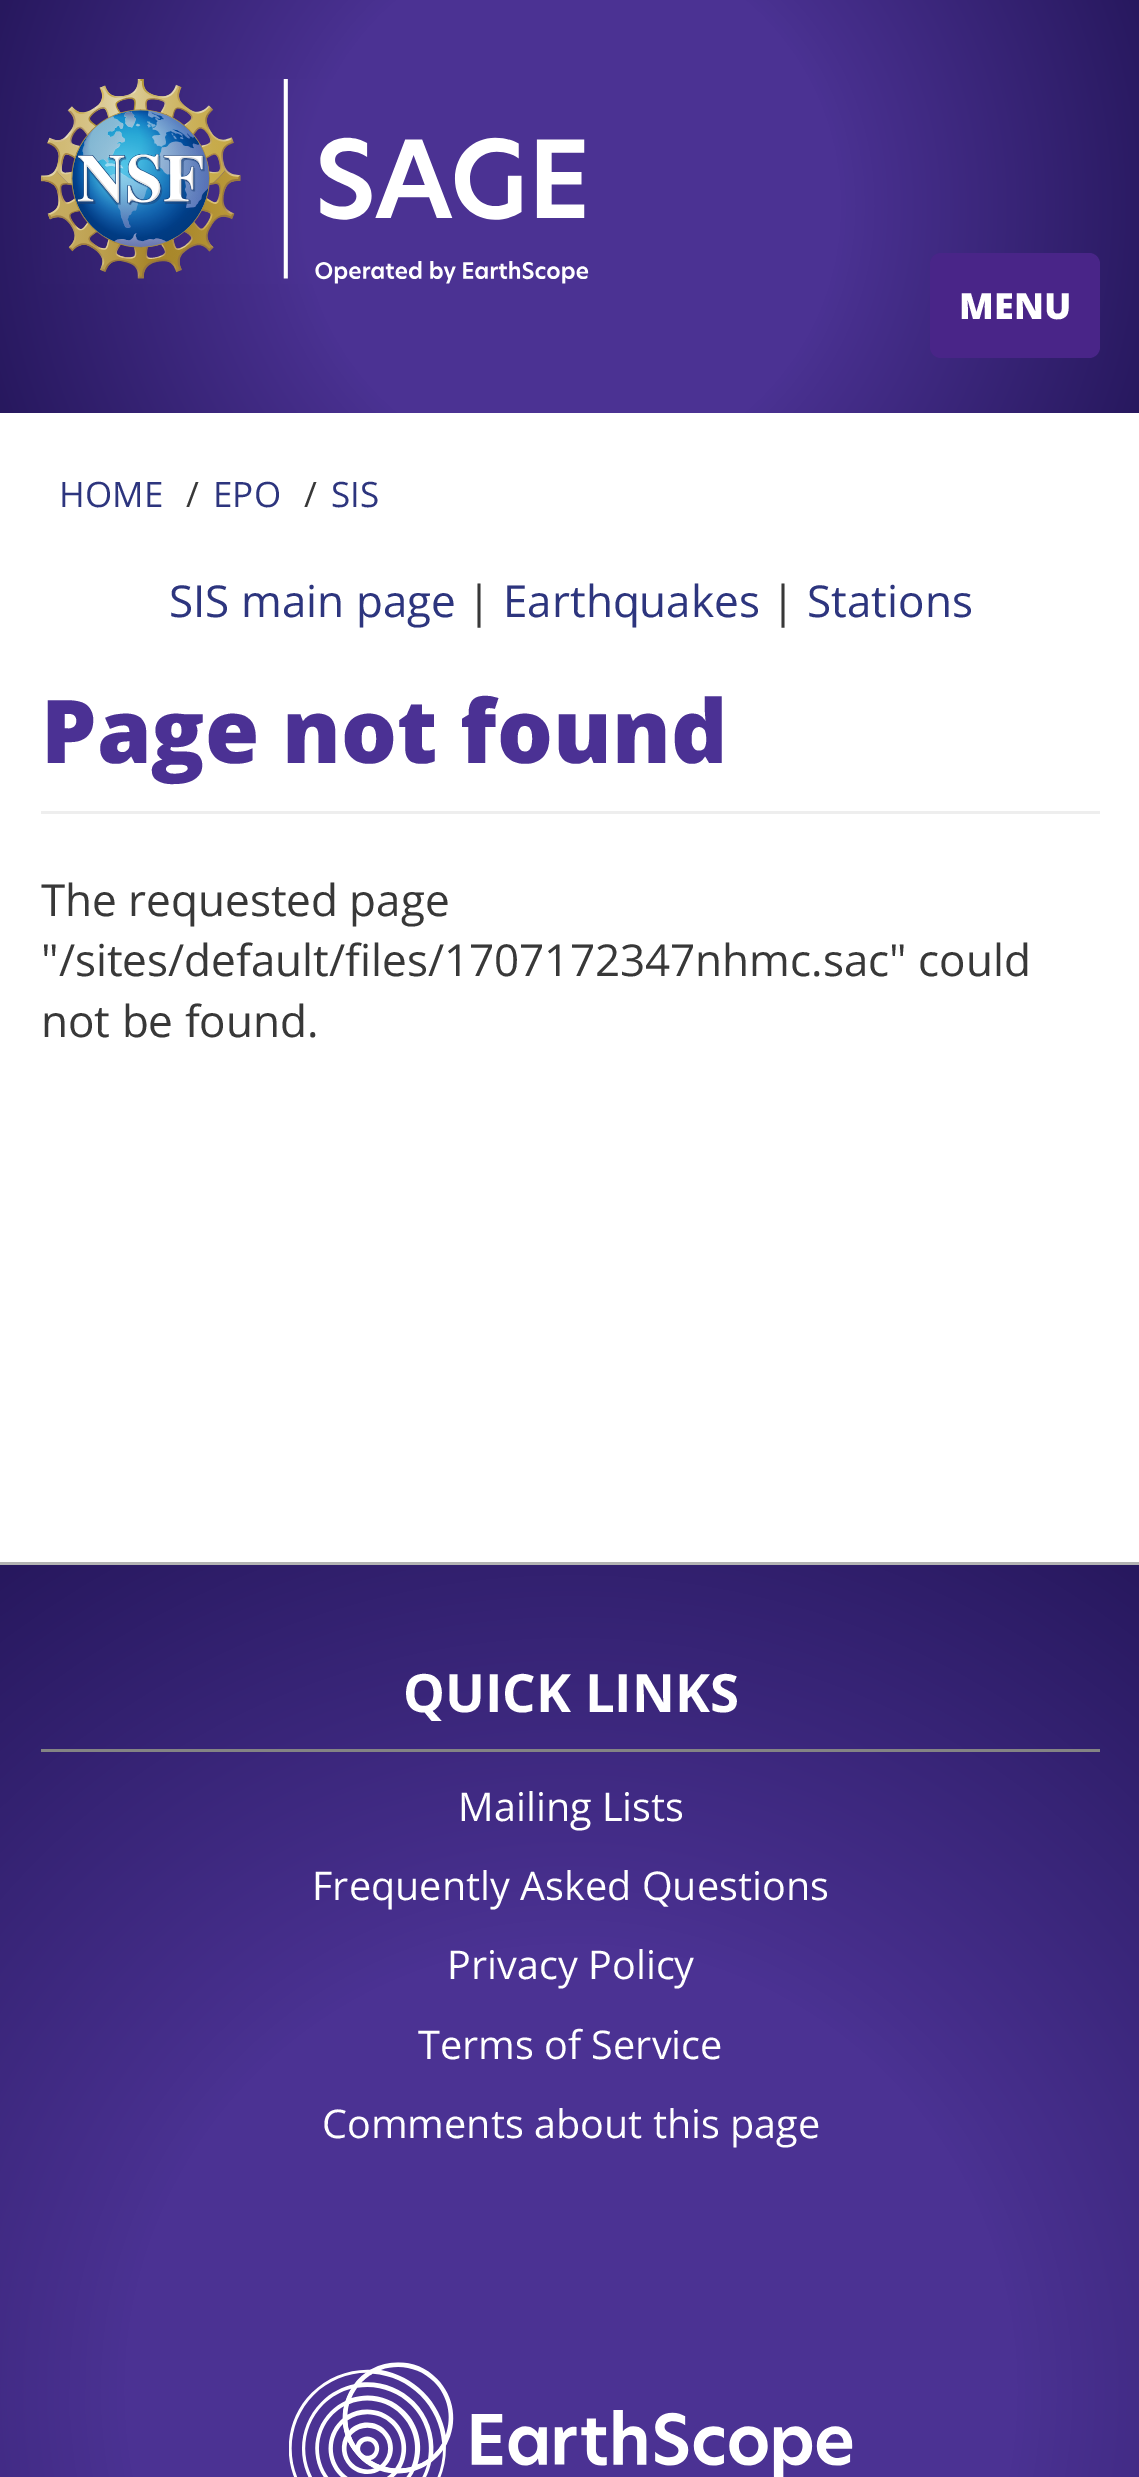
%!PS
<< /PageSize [1139 2477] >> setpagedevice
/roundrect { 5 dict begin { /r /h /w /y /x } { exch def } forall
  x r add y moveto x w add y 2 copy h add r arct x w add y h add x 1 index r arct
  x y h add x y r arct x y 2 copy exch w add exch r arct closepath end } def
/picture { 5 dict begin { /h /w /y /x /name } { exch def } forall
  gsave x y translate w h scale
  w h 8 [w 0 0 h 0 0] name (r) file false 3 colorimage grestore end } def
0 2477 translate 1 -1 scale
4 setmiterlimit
1 setgray
0 0 1139 2477 rectfill
gsave newpath 0 0 moveto 1139 0 lineto 1139 413 lineto 0 413 lineto closepath clip newpath 571 206 translate 607 607 scale
<< /ShadingType 3 /ColorSpace /DeviceRGB /Coords [0 0 0 0 0 1] /Extend [true true] /Function << /FunctionType 3 /Domain [0 1] /Functions [<< /FunctionType 2 /Domain [0 1] /C0 [0.294 0.196 0.576] /C1 [0.294 0.196 0.576] /N 1 >> << /FunctionType 2 /Domain [0 1] /C0 [0.294 0.196 0.576] /C1 [0.153 0.094 0.369] /N 1 >>] /Bounds [0.44] /Encode [0 1 0 1] >> >> shfill grestore
(img1.rgb) 41 79 548 205 picture
0.286 0.145 0.533 setrgbcolor
930 253 170 105 11 roundrect fill
/OpenSans-ExtraBold [36 0 0 -36 0 0] selectfont
1 setgray
959 319 moveto (MENU) show
/OpenSans-Regular [35 0 0 -35 0 0] selectfont
0.176 0.208 0.494 setrgbcolor
59 507 moveto (HOME) show
0.22 setgray
186 507 moveto (/) show
0.176 0.208 0.494 setrgbcolor
213 507 moveto (EPO) show
0.22 setgray
304 507 moveto (/) show
0.176 0.208 0.494 setrgbcolor
331 507 moveto (SIS) show
/OpenSans-Regular [44 0 0 -44 0 0] selectfont
169 617 moveto (SIS main page) show
0.22 setgray
467 617 moveto (|) show
0.176 0.208 0.494 setrgbcolor
503 617 moveto (Earthquakes) show
0.22 setgray
771 617 moveto (|) show
0.176 0.208 0.494 setrgbcolor
807 617 moveto (Stations) show
0.933 setgray
41 811 1059 3 rectfill
/OpenSans-ExtraBold [88 0 0 -88 0 0] selectfont
0.294 0.192 0.58 setrgbcolor
41 763 moveto (Page not found) show
/OpenSans-Regular [44 0 0 -44 0 0] selectfont
0.22 setgray
41 916 moveto (The requested page) show
41 976 moveto ("/sites/default/files/1707172347nhmc.sac" could) show
41 1037 moveto (not be found.) show
gsave newpath 0 1565 moveto 1139 1565 lineto 1139 2477 lineto 0 2477 lineto closepath clip newpath 571 2390 translate 1003 1003 scale
<< /ShadingType 3 /ColorSpace /DeviceRGB /Coords [0 0 0 0 0 1] /Extend [true true] /Function << /FunctionType 3 /Domain [0 1] /Functions [<< /FunctionType 2 /Domain [0 1] /C0 [0.294 0.196 0.576] /C1 [0.294 0.196 0.576] /N 1 >> << /FunctionType 2 /Domain [0 1] /C0 [0.294 0.196 0.576] /C1 [0.153 0.094 0.369] /N 1 >>] /Bounds [0.44] /Encode [0 1 0 1] >> >> shfill grestore
0.702 setgray
0 1562 1139 3 rectfill
0.518 setgray
41 1749 1059 3 rectfill
/OpenSans-Bold [52.75 0 0 -52.75 0 0] selectfont
1 setgray
403 1712 moveto (QUICK LINKS) show
/OpenSans-Regular [39.6 0 0 -39.6 0 0] selectfont
458 1821 moveto (Mailing Lists) show
312 1900 moveto (Frequently Asked Questions) show
447 1979 moveto (Privacy Policy) show
418 2059 moveto (Terms of Service) show
322 2138 moveto (Comments about this page) show
(img2.rgb) 289 2362 564 115 picture
showpage
